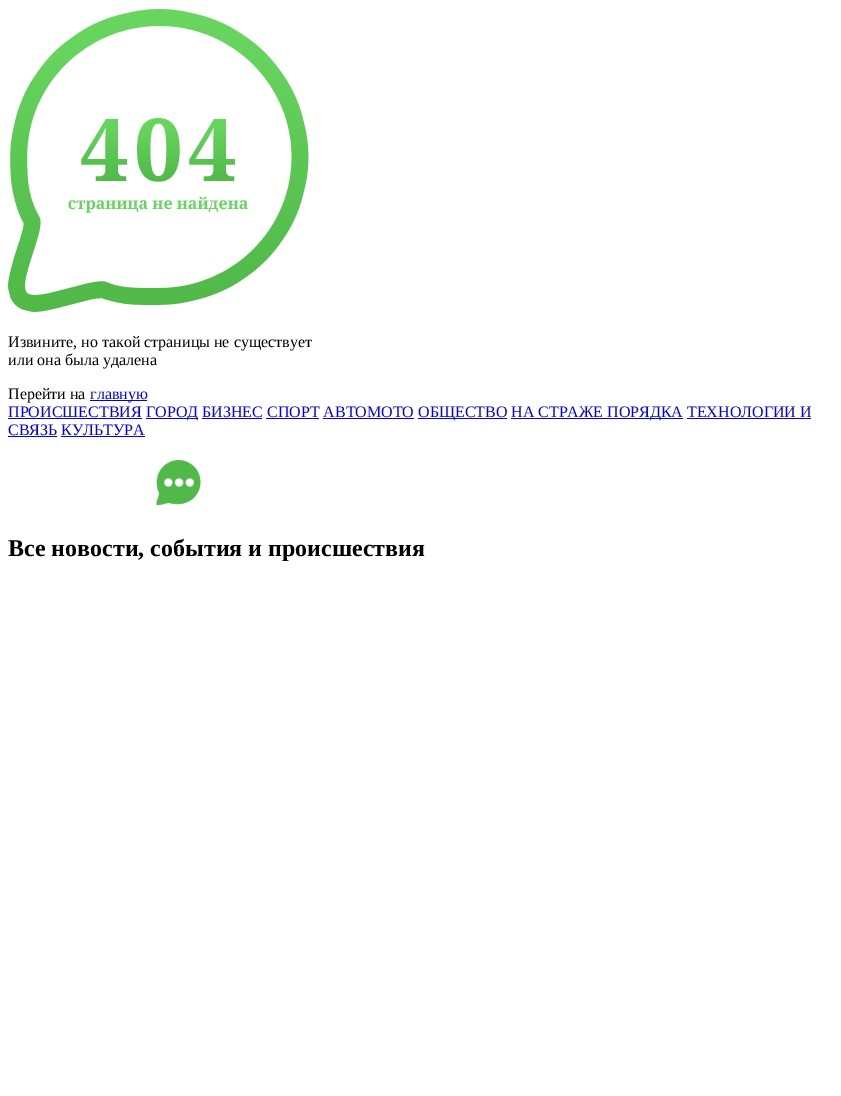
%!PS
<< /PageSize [841 1096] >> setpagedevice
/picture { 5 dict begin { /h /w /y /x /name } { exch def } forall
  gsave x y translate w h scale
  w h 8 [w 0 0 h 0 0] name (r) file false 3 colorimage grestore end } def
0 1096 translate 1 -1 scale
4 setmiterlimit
1 setgray
0 0 841 1096 rectfill
(img1.rgb) 8 9 301 303 picture
/LiberationSerif-Regular [16 0 0 -16 0 0] selectfont
0 setgray
8 347 moveto (Извините, но такой страницы не существует) show
8 365 moveto (или она была удалена) show
8 399 moveto (Перейти на) show
0 0 0.933 setrgbcolor
90 400 57 1 rectfill
90 399 moveto (главную) show
8 417 moveto (ПРОИСШЕСТВИЯ) show
8 418 134 1 rectfill
146 418 52 1 rectfill
146 417 moveto (ГОРОД БИЗНЕС СПОРТ АВТОМОТО) show
418 418 89 1 rectfill
418 417 moveto (ОБЩЕСТВО) show
511 418 172 1 rectfill
511 417 moveto (НА СТРАЖЕ ПОРЯДКА ТЕХНОЛОГИИ И) show
202 418 60 1 rectfill
266 418 53 1 rectfill
323 418 91 1 rectfill
8 435 moveto (СВЯЗЬ КУЛЬТУРА) show
687 418 124 1 rectfill
8 436 49 1 rectfill
61 436 84 1 rectfill
(img2.rgb) 156 460 45 45 picture
/LiberationSerif-Bold [24 0 0 -24 0 0] selectfont
0 setgray
8 556 moveto (Все новости, события и происшествия) show
showpage
